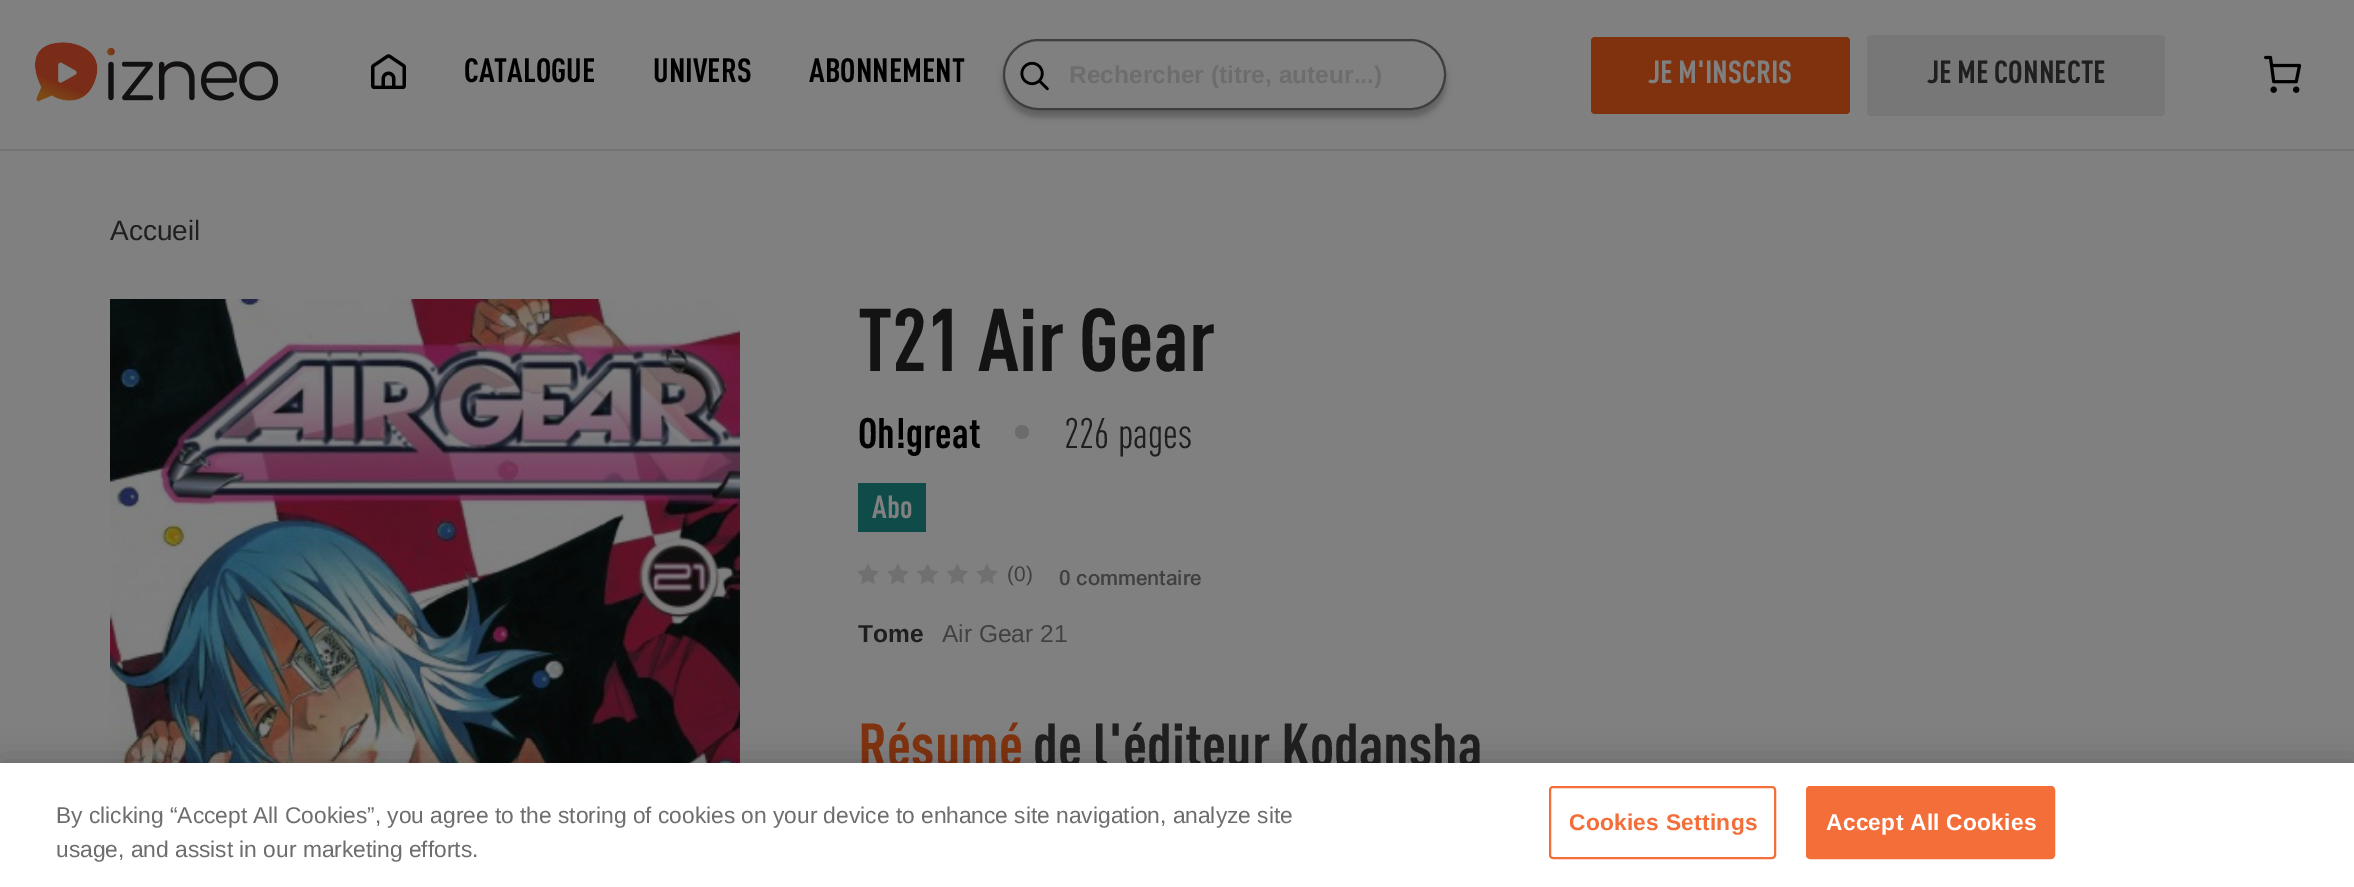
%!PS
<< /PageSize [2354 887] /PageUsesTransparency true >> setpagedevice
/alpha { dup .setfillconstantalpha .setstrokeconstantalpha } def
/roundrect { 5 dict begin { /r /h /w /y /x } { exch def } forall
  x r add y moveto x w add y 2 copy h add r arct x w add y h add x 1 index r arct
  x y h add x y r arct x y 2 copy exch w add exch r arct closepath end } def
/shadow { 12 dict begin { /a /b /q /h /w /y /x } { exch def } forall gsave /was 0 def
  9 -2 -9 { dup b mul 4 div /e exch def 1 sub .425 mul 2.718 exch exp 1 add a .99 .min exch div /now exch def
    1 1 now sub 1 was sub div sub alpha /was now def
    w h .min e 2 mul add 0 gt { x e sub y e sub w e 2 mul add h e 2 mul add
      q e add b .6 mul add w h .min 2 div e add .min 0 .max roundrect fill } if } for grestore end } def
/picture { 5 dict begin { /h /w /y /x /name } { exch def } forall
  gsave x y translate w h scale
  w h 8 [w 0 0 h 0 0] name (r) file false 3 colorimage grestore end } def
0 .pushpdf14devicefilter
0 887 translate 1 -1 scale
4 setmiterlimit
0.502 setgray
0 0 2354 887 rectfill
0.451 setgray
0 149 2354 2 rectfill
(img1.rgb) 35 42 243 60 picture
(img2.rgb) 371 54 35 35 picture
/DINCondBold-Bold [33.25 0 0 -33.25 0 0] selectfont
0 setgray
464 82 moveto (CATALOGUE) show
653 82 moveto (UNIVERS) show
809 82 moveto (ABONNEMENT) show
gsave
newpath 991 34 moveto 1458 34 lineto 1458 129 lineto 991 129 lineto closepath 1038.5 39 moveto 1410.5 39 lineto 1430 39 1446 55 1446 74.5 curveto 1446 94 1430 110 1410.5 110 curveto 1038.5 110 lineto 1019 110 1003 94 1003 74.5 curveto 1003 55 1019 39 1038.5 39 curveto closepath eoclip newpath
1003 46 443 71 35.5 3.5 0.25 shadow
grestore
0.243 setgray
2 setlinewidth
1004 40 441 69 34.5 roundrect stroke
(img3.rgb) 1020 61 29 30 picture
/LiberationSans-Bold [24.5 0 0 -24.5 0 0] selectfont
0.427 setgray
1069 83 moveto (Rechercher \(titre, auteur...\)) show
0.502 0.196 0.059 setrgbcolor
1591 37 259 77 4 roundrect fill
/DINCondBold-Bold [31.5 0 0 -31.5 0 0] selectfont
0.502 setgray
1648 83 moveto (JE M'INSCRIS) show
0.467 setgray
1867 35 298 81 4 roundrect fill
0.122 setgray
1927 83 moveto (JE ME CONNECTE) show
(img4.rgb) 2264 55 38 38 picture
/LiberationSans-Regular [28 0 0 -28 0 0] selectfont
110 240 moveto (Accueil) show
(img5.rgb) 110 299 630 464 picture
/DINCondBold-Bold [87.5 0 0 -87.5 0 0] selectfont
0.078 0.075 0.075 setrgbcolor
858 371 moveto (T21 Air Gear) show
/DINCondBold-Bold [42 0 0 -42 0 0] selectfont
0 setgray
858 448 moveto (Oh!great) show
0.424 setgray
newpath 1022 432 7 0 360 arc closepath fill
/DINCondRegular-Regular [42 0 0 -42 0 0] selectfont
0.122 setgray
1064 448 moveto (226 pages) show
0.059 0.294 0.282 setrgbcolor
858 483 68 49 rectfill
/DINCondBold-Bold [31.5 0 0 -31.5 0 0] selectfont
0.502 setgray
872 518 moveto (Abo) show
(img6.rgb) 857 564 22 20 picture
(img7.rgb) 887 564 22 20 picture
(img8.rgb) 917 564 21 20 picture
(img9.rgb) 947 564 21 20 picture
(img6.rgb) 976 564 22 20 picture
/LiberationSans-Regular [21 0 0 -21 0 0] selectfont
0.251 setgray
1007 581 moveto (\(0\)) show
/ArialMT-Medium [21 0 0 -21 0 0] selectfont
1059 585 moveto (0 commentaire) show
/LiberationSans-Bold [24.5 0 0 -24.5 0 0] selectfont
0.122 setgray
858 642 moveto (Tome) show
/LiberationSans-Regular [24.5 0 0 -24.5 0 0] selectfont
0.251 setgray
942 642 moveto (Air Gear 21) show
/DINCondBold-Bold [61.25 0 0 -61.25 0 0] selectfont
0.502 0.196 0.059 setrgbcolor
858 767 moveto (Résumé) show
0.122 setgray
1033 767 moveto (de l'éditeur Kodansha) show
0 setgray
0 763 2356 124 0 16 0.2 shadow
1 setgray
0 763 2354 124 rectfill
/LiberationSans-Regular [22.75 0 0 -22.75 0 0] selectfont
0.427 setgray
56 823 moveto (By clicking “Accept All Cookies”, you agree to the storing of cookies on your device to enhance site navigation, analyze site) show
56 857 moveto (usage, and assist in our marketing efforts.) show
0.953 0.431 0.224 setrgbcolor
1550 787 225 71 3 roundrect stroke
/LiberationSans-Bold [22.75 0 0 -22.75 0 0] selectfont
1569 830 moveto 0.25 0 (Cookies Settings) ashow
1807 787 247 71 3 roundrect gsave fill grestore
stroke
1 setgray
1826 830 moveto 0.25 0 (Accept All Cookies) ashow
.poppdf14devicefilter showpage
